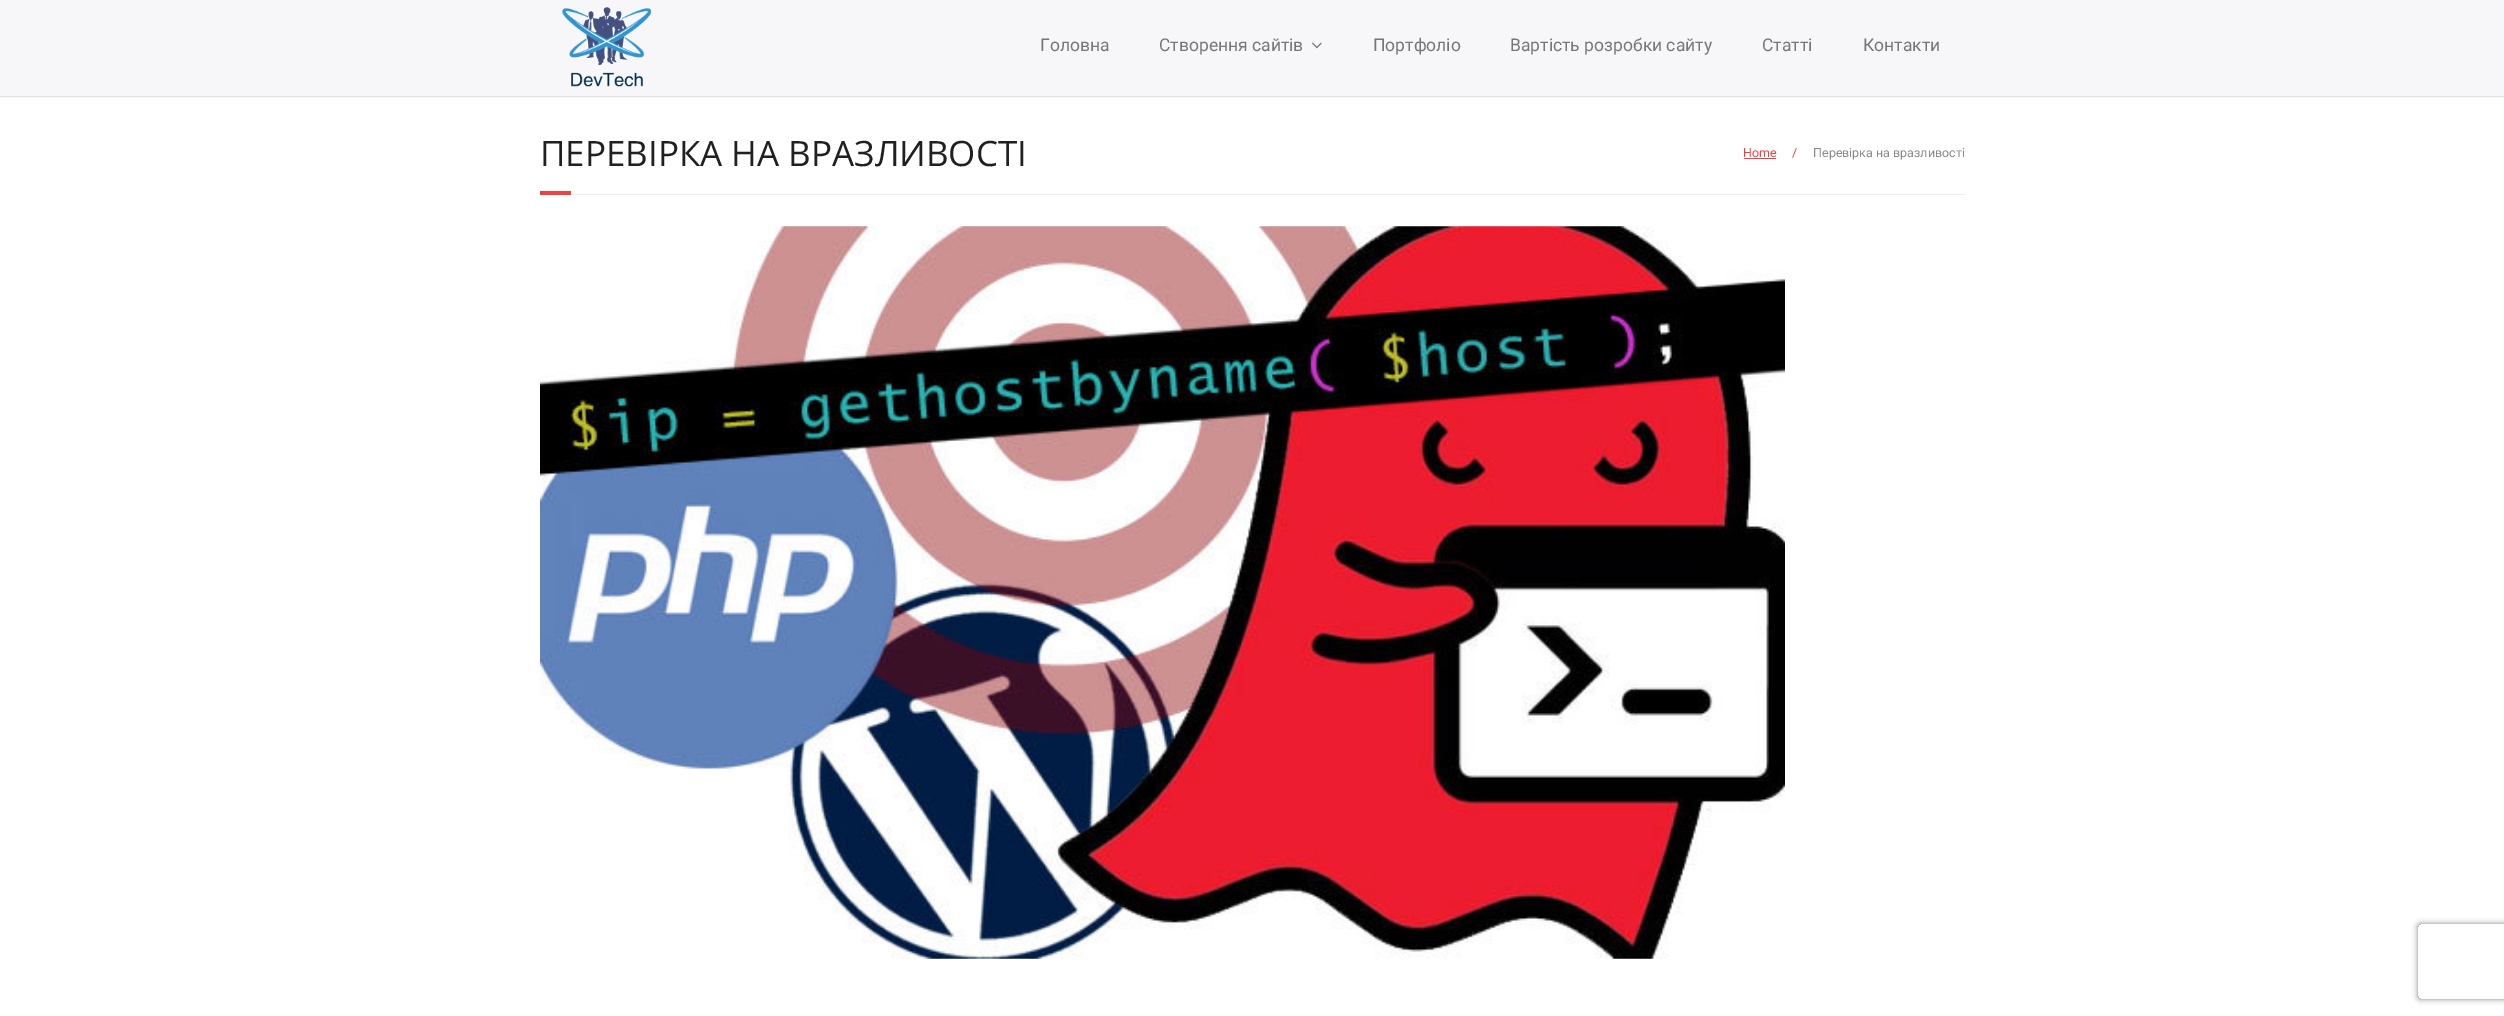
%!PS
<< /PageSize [2504 1016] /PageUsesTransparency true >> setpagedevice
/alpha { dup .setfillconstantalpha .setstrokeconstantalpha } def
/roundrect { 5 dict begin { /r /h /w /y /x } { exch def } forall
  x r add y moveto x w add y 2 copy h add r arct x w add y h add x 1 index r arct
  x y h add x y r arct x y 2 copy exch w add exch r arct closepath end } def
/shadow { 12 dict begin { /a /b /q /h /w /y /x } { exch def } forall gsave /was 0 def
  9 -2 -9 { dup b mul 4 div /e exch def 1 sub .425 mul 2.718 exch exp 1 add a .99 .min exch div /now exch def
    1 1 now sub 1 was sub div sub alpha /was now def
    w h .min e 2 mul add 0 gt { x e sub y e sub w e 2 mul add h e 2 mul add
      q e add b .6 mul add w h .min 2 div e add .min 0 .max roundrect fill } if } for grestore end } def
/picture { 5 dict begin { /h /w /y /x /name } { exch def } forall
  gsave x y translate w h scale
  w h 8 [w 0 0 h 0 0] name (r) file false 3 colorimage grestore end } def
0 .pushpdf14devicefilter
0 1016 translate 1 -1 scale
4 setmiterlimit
1 setgray
0 0 2504 1016 rectfill
0.969 0.969 0.976 setrgbcolor
0 0 2504 98 rectfill
0.878 setgray
0 96 2504 1 rectfill
(img1.rgb) 562 6 90 81 picture
/Roboto-Regular [17.5 0 0 -17.5 0 0] selectfont
0.467 setgray
1040 51 moveto (Головна) show
1159 51 moveto (Створення сайтів) show
(img2.rgb) 1312 42 10 7 picture
1373 51 moveto (Портфоліо) show
1510 51 moveto (Вартість розробки сайту) show
1762 51 moveto (Статті) show
1863 51 moveto (Контакти) show
/OpenSans-Regular [35 0 0 -35 0 0] selectfont
0.125 setgray
540 166 moveto (ПЕРЕВІРКА НА ВРАЗЛИВОСТІ) show
/Roboto-Regular [12.5 0 0 -12.5 0 0] selectfont
0.953 0.247 0.247 setrgbcolor
1743 157 moveto (Home) show
1744 158 32 1 rectfill
1792 157 moveto (/) show
0.533 setgray
1813 157 moveto (Перевірка на вразливості) show
0.953 0.247 0.247 setrgbcolor
540 191 31 4 rectfill
0.933 setgray
571 194 1394 1 rectfill
(img3.rgb) 540 226 1245 733 picture
gsave
newpath 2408 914 moveto 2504 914 lineto 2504 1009 lineto 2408 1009 lineto closepath 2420.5 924 moveto 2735.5 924 lineto 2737 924 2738 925 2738 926.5 curveto 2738 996.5 lineto 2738 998 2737 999 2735.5 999 curveto 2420.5 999 lineto 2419 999 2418 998 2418 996.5 curveto 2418 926.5 lineto 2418 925 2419 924 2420.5 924 curveto closepath eoclip newpath
0.502 setgray
2418 924 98 75 2.5 3 1 shadow
grestore
.poppdf14devicefilter showpage
